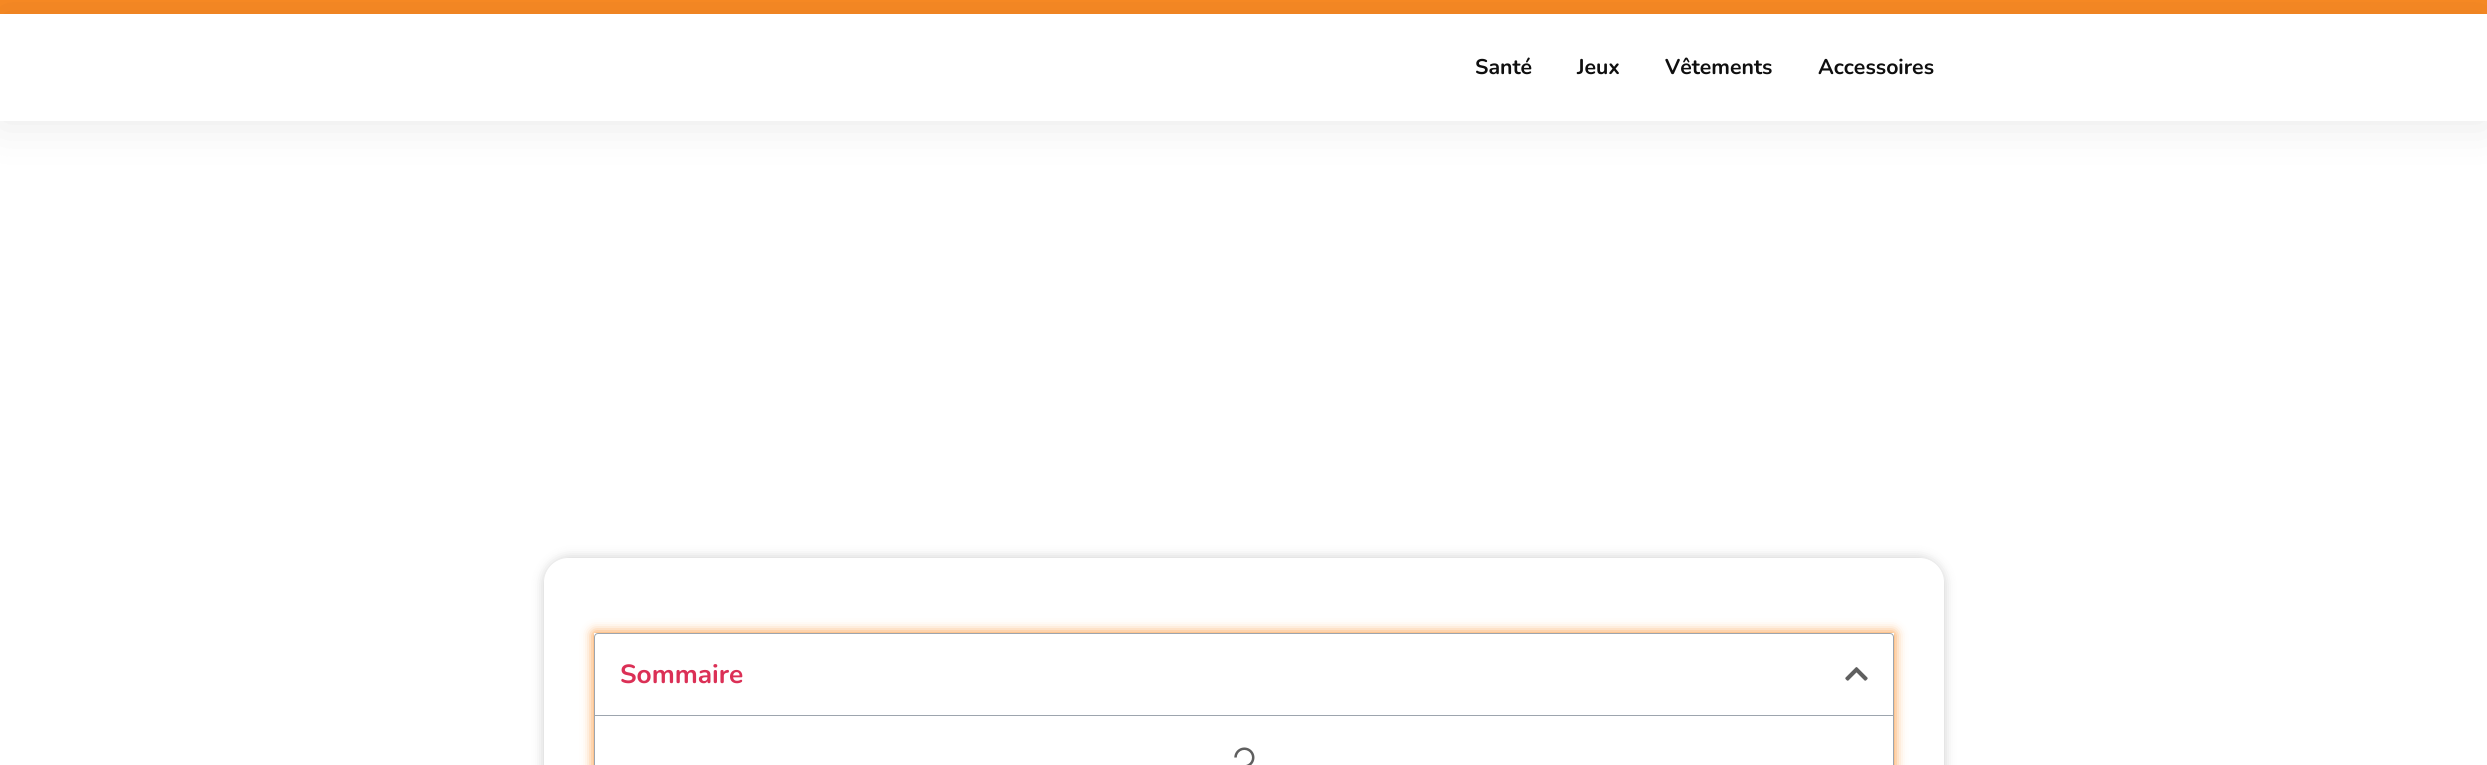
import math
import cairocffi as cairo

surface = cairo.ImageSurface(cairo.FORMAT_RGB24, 2487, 765)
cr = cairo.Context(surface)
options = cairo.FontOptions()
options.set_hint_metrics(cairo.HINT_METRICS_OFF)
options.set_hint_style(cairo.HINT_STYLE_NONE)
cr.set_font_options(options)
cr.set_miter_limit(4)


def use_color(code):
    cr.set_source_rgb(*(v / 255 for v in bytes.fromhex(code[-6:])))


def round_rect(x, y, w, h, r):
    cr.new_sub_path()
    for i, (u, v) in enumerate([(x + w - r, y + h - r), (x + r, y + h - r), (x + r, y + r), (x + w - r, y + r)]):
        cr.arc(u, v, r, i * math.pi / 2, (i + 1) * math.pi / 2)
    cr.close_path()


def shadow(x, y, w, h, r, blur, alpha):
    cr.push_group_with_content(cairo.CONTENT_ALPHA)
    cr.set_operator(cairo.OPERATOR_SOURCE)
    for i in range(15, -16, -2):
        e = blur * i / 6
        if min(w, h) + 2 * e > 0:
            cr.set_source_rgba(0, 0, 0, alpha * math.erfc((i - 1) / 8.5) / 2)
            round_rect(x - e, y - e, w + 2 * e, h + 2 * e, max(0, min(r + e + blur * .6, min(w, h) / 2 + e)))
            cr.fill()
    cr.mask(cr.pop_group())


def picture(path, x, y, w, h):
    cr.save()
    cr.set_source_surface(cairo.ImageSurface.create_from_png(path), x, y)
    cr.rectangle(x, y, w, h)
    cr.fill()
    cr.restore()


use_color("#ffffff")
cr.paint()
use_color("#fb8b24")
cr.rectangle(0, 0, 2487, 14)
cr.fill()
cr.save()
cr.set_fill_rule(cairo.FILL_RULE_EVEN_ODD)
cr.new_path()
cr.move_to(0, 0)
cr.line_to(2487, 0)
cr.line_to(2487, 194)
cr.line_to(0, 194)
cr.close_path()
cr.move_to(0, 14)
cr.line_to(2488, 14)
cr.line_to(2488, 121)
cr.line_to(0, 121)
cr.close_path()
cr.clip()
use_color("#000000")
shadow(0, 14, 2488, 107, 0, 24, 0.1)
cr.restore()
cr.select_font_face("Nunito", cairo.FONT_SLANT_NORMAL, cairo.FONT_WEIGHT_BOLD)
cr.set_font_size(21.25)
use_color("#0f0f0f")
cr.move_to(1475, 74)
cr.show_text("Santé")
cr.move_to(1577, 74)
cr.show_text("Jeux")
cr.move_to(1665, 74)
cr.show_text("Vêtements")
cr.move_to(1818, 74)
cr.show_text("Accessoires")
cr.save()
cr.set_fill_rule(cairo.FILL_RULE_EVEN_ODD)
cr.new_path()
cr.move_to(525, 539)
cr.line_to(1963, 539)
cr.line_to(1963, 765)
cr.line_to(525, 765)
cr.close_path()
cr.move_to(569, 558)
cr.line_to(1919, 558)
cr.curve_to(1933, 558, 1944, 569, 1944, 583)
cr.line_to(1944, 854)
cr.curve_to(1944, 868, 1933, 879, 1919, 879)
cr.line_to(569, 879)
cr.curve_to(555, 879, 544, 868, 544, 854)
cr.line_to(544, 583)
cr.curve_to(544, 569, 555, 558, 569, 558)
cr.close_path()
cr.clip()
use_color("#000000")
shadow(544, 558, 1400, 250, 25, 6, 0.21)
cr.restore()
cr.save()
cr.set_fill_rule(cairo.FILL_RULE_EVEN_ODD)
cr.new_path()
cr.move_to(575, 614)
cr.line_to(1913, 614)
cr.line_to(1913, 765)
cr.line_to(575, 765)
cr.close_path()
cr.move_to(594, 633)
cr.line_to(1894, 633)
cr.line_to(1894, 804)
cr.line_to(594, 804)
cr.close_path()
cr.clip()
use_color("#fb8b24")
shadow(594, 633, 1300, 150, 0, 6, 1)
cr.restore()
round_rect(594.5, 633.5, 1299, 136, 3.5)
use_color("#9da5ae")
cr.set_line_width(1)
cr.stroke()
cr.rectangle(595, 715, 1298, 1)
cr.fill()
cr.set_font_size(26.25)
use_color("#db3056")
cr.move_to(620, 683)
cr.show_text("Sommaire")
picture("img1.png", 1845, 667, 23, 14)
picture("img2.png", 1234, 747, 21, 18)
surface.write_to_png("result.png")
